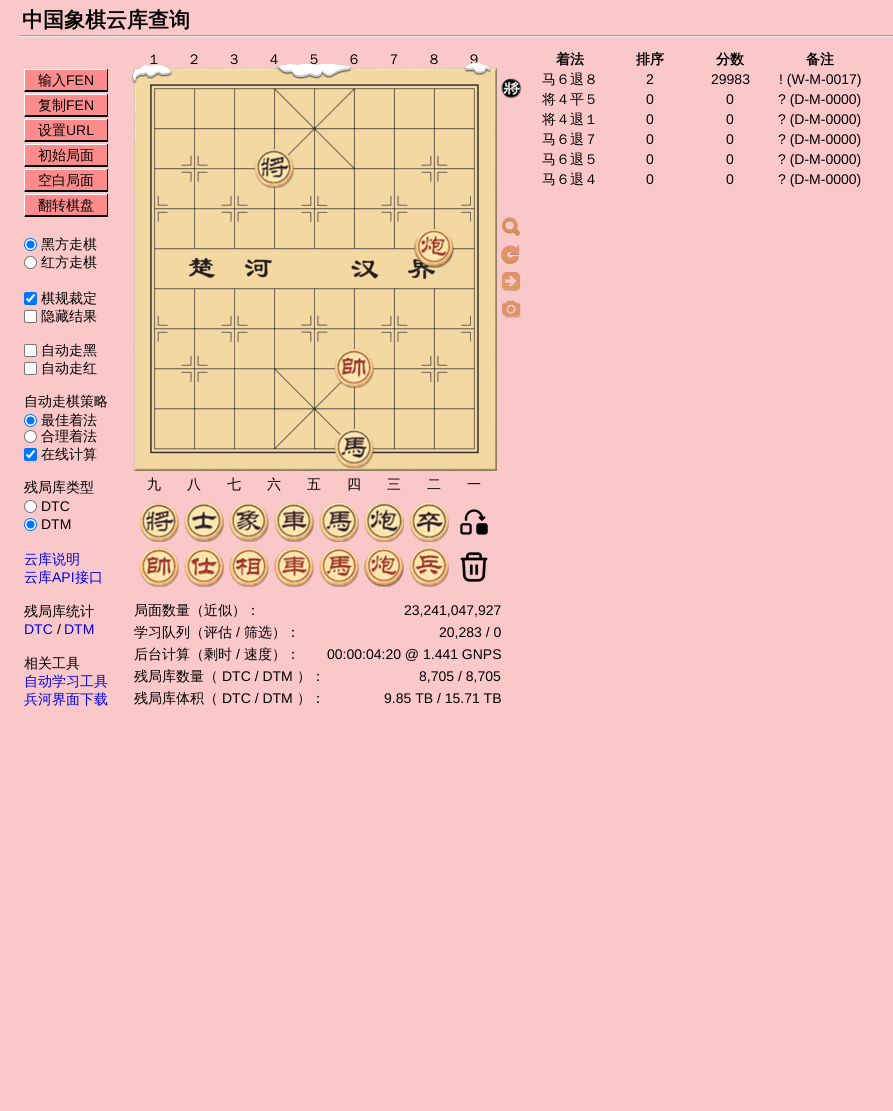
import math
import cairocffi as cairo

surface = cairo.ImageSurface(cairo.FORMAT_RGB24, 893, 1111)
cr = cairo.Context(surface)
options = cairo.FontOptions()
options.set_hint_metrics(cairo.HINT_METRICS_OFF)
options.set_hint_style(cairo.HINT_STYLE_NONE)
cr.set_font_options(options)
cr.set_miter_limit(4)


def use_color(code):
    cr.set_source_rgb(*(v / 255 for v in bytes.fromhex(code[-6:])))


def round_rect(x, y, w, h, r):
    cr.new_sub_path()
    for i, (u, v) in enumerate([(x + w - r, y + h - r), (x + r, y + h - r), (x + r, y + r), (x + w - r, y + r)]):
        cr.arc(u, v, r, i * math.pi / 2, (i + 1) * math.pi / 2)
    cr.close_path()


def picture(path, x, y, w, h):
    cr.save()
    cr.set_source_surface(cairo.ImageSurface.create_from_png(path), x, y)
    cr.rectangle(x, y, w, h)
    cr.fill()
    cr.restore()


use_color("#fac8c8")
cr.paint()
cr.select_font_face("WenQuanYi Zen Hei", cairo.FONT_SLANT_NORMAL, cairo.FONT_WEIGHT_BOLD)
cr.set_font_size(21)
use_color("#000000")
cr.move_to(22, 27)
cr.show_text("中国象棋云库查询")
use_color("#9f9f9f")
cr.rectangle(20, 35, 873, 1)
cr.fill()
use_color("#eeeeee")
cr.rectangle(20, 36, 873, 1)
cr.fill()
use_color("#ff8c8c")
cr.rectangle(25, 70, 82, 20)
cr.fill()
use_color("#ffffff")
cr.rectangle(24, 69, 84, 1)
cr.fill()
use_color("#000000")
cr.rectangle(107, 69, 1, 23)
cr.fill()
cr.new_path()
cr.move_to(108, 92)
cr.line_to(24, 92)
cr.line_to(25, 90)
cr.line_to(107, 90)
cr.close_path()
cr.fill()
use_color("#ffffff")
cr.new_path()
cr.move_to(24, 92)
cr.line_to(24, 69)
cr.line_to(25, 70)
cr.line_to(25, 90)
cr.close_path()
cr.fill()
cr.select_font_face("WenQuanYi Zen Hei Medium")
cr.set_font_size(14)
use_color("#000000")
cr.move_to(38, 85)
cr.show_text("输入")
cr.select_font_face("Liberation Sans")
cr.move_to(66, 85)
cr.show_text("FEN")
use_color("#ff8c8c")
cr.rectangle(25, 95, 82, 20)
cr.fill()
use_color("#ffffff")
cr.rectangle(24, 94, 84, 1)
cr.fill()
use_color("#000000")
cr.rectangle(107, 94, 1, 23)
cr.fill()
cr.new_path()
cr.move_to(108, 117)
cr.line_to(24, 117)
cr.line_to(25, 115)
cr.line_to(107, 115)
cr.close_path()
cr.fill()
use_color("#ffffff")
cr.new_path()
cr.move_to(24, 117)
cr.line_to(24, 94)
cr.line_to(25, 95)
cr.line_to(25, 115)
cr.close_path()
cr.fill()
cr.select_font_face("WenQuanYi Zen Hei Medium")
use_color("#000000")
cr.move_to(38, 110)
cr.show_text("复制")
cr.select_font_face("Liberation Sans")
cr.move_to(66, 110)
cr.show_text("FEN")
use_color("#ff8c8c")
cr.rectangle(25, 120, 82, 20)
cr.fill()
use_color("#ffffff")
cr.rectangle(24, 119, 84, 1)
cr.fill()
use_color("#000000")
cr.rectangle(107, 119, 1, 23)
cr.fill()
cr.new_path()
cr.move_to(108, 142)
cr.line_to(24, 142)
cr.line_to(25, 140)
cr.line_to(107, 140)
cr.close_path()
cr.fill()
use_color("#ffffff")
cr.new_path()
cr.move_to(24, 142)
cr.line_to(24, 119)
cr.line_to(25, 120)
cr.line_to(25, 140)
cr.close_path()
cr.fill()
cr.select_font_face("WenQuanYi Zen Hei Medium")
use_color("#000000")
cr.move_to(38, 135)
cr.show_text("设置")
cr.select_font_face("Liberation Sans")
cr.move_to(66, 135)
cr.show_text("URL")
use_color("#ff8c8c")
cr.rectangle(25, 145, 82, 20)
cr.fill()
use_color("#ffffff")
cr.rectangle(24, 144, 84, 1)
cr.fill()
use_color("#000000")
cr.rectangle(107, 144, 1, 23)
cr.fill()
cr.new_path()
cr.move_to(108, 167)
cr.line_to(24, 167)
cr.line_to(25, 165)
cr.line_to(107, 165)
cr.close_path()
cr.fill()
use_color("#ffffff")
cr.new_path()
cr.move_to(24, 167)
cr.line_to(24, 144)
cr.line_to(25, 145)
cr.line_to(25, 165)
cr.close_path()
cr.fill()
cr.select_font_face("WenQuanYi Zen Hei Medium")
use_color("#000000")
cr.move_to(38, 160)
cr.show_text("初始局面")
use_color("#ff8c8c")
cr.rectangle(25, 170, 82, 20)
cr.fill()
use_color("#ffffff")
cr.rectangle(24, 169, 84, 1)
cr.fill()
use_color("#000000")
cr.rectangle(107, 169, 1, 23)
cr.fill()
cr.new_path()
cr.move_to(108, 192)
cr.line_to(24, 192)
cr.line_to(25, 190)
cr.line_to(107, 190)
cr.close_path()
cr.fill()
use_color("#ffffff")
cr.new_path()
cr.move_to(24, 192)
cr.line_to(24, 169)
cr.line_to(25, 170)
cr.line_to(25, 190)
cr.close_path()
cr.fill()
use_color("#000000")
cr.move_to(38, 185)
cr.show_text("空白局面")
use_color("#ff8c8c")
cr.rectangle(25, 195, 82, 20)
cr.fill()
use_color("#ffffff")
cr.rectangle(24, 194, 84, 1)
cr.fill()
use_color("#000000")
cr.rectangle(107, 194, 1, 23)
cr.fill()
cr.new_path()
cr.move_to(108, 217)
cr.line_to(24, 217)
cr.line_to(25, 215)
cr.line_to(107, 215)
cr.close_path()
cr.fill()
use_color("#ffffff")
cr.new_path()
cr.move_to(24, 217)
cr.line_to(24, 194)
cr.line_to(25, 195)
cr.line_to(25, 215)
cr.close_path()
cr.fill()
use_color("#000000")
cr.move_to(38, 210)
cr.show_text("翻转棋盘")
use_color("#ffffff")
cr.new_path()
cr.arc(30.5, 244.5, 6, 0, 2 * math.pi)
cr.fill_preserve()
use_color("#0075ff")
cr.set_line_width(1)
cr.stroke()
cr.arc(30.5, 244.5, 4, 0, 2 * math.pi)
cr.fill()
use_color("#000000")
cr.move_to(41, 249)
cr.show_text("黑方走棋")
use_color("#ffffff")
cr.new_path()
cr.arc(30.5, 262.5, 6, 0, 2 * math.pi)
cr.fill_preserve()
use_color("#767676")
cr.stroke()
use_color("#000000")
cr.move_to(41, 267)
cr.show_text("红方走棋")
use_color("#0075ff")
round_rect(24, 292, 13, 13, 2)
cr.fill()
cr.new_path()
cr.move_to(26.5, 298.5)
cr.line_to(29, 301)
cr.line_to(34.5, 294.5)
use_color("#ffffff")
cr.set_line_width(2.1)
cr.stroke()
use_color("#000000")
cr.move_to(41, 303)
cr.show_text("棋规裁定")
use_color("#ffffff")
round_rect(24.5, 310.5, 12, 12, 1.5)
cr.fill_preserve()
use_color("#767676")
cr.set_line_width(1)
cr.stroke()
use_color("#000000")
cr.move_to(41, 321)
cr.show_text("隐藏结果")
use_color("#ffffff")
round_rect(24.5, 344.5, 12, 12, 1.5)
cr.fill_preserve()
use_color("#767676")
cr.stroke()
use_color("#000000")
cr.move_to(41, 355)
cr.show_text("自动走黑")
use_color("#ffffff")
round_rect(24.5, 362.5, 12, 12, 1.5)
cr.fill_preserve()
use_color("#767676")
cr.stroke()
use_color("#000000")
cr.move_to(41, 373)
cr.show_text("自动走红")
cr.move_to(24, 406)
cr.show_text("自动走棋策略")
use_color("#ffffff")
cr.new_path()
cr.arc(30.5, 420.5, 6, 0, 2 * math.pi)
cr.fill_preserve()
use_color("#0075ff")
cr.stroke()
cr.arc(30.5, 420.5, 4, 0, 2 * math.pi)
cr.fill()
use_color("#000000")
cr.move_to(41, 425)
cr.show_text("最佳着法")
use_color("#ffffff")
cr.new_path()
cr.arc(30.5, 436.5, 6, 0, 2 * math.pi)
cr.fill_preserve()
use_color("#767676")
cr.stroke()
use_color("#000000")
cr.move_to(41, 441)
cr.show_text("合理着法")
use_color("#0075ff")
round_rect(24, 448, 13, 13, 2)
cr.fill()
cr.new_path()
cr.move_to(26.5, 454.5)
cr.line_to(29, 457)
cr.line_to(34.5, 450.5)
use_color("#ffffff")
cr.set_line_width(2.1)
cr.stroke()
use_color("#000000")
cr.move_to(41, 459)
cr.show_text("在线计算")
cr.move_to(24, 492)
cr.show_text("残局库类型")
use_color("#ffffff")
cr.new_path()
cr.arc(30.5, 506.5, 6, 0, 2 * math.pi)
cr.fill_preserve()
use_color("#767676")
cr.set_line_width(1)
cr.stroke()
cr.select_font_face("Liberation Sans")
use_color("#000000")
cr.move_to(41, 511)
cr.show_text("DTC")
use_color("#ffffff")
cr.new_path()
cr.arc(30.5, 524.5, 6, 0, 2 * math.pi)
cr.fill_preserve()
use_color("#0075ff")
cr.stroke()
cr.arc(30.5, 524.5, 4, 0, 2 * math.pi)
cr.fill()
use_color("#000000")
cr.move_to(41, 529)
cr.show_text("DTM")
cr.select_font_face("WenQuanYi Zen Hei Medium")
use_color("#0000ee")
cr.move_to(24, 564)
cr.show_text("云库说明")
cr.move_to(24, 582)
cr.show_text("云库")
cr.select_font_face("Liberation Sans")
cr.move_to(52, 582)
cr.show_text("API")
cr.select_font_face("WenQuanYi Zen Hei Medium")
cr.move_to(75, 582)
cr.show_text("接口")
use_color("#000000")
cr.move_to(24, 616)
cr.show_text("残局库统计")
cr.select_font_face("Liberation Sans")
use_color("#0000ee")
cr.move_to(24, 634)
cr.show_text("DTC")
use_color("#000000")
cr.move_to(57, 634)
cr.show_text("/")
use_color("#0000ee")
cr.move_to(64, 634)
cr.show_text("DTM")
cr.select_font_face("WenQuanYi Zen Hei Medium")
use_color("#000000")
cr.move_to(24, 668)
cr.show_text("相关工具")
use_color("#0000ee")
cr.move_to(24, 686)
cr.show_text("自动学习工具")
cr.move_to(24, 704)
cr.show_text("兵河界面下载")
use_color("#000000")
cr.move_to(147, 64)
cr.show_text("１")
cr.move_to(187, 64)
cr.show_text("２")
cr.move_to(227, 64)
cr.show_text("３")
cr.move_to(267, 64)
cr.show_text("４")
cr.move_to(307, 64)
cr.show_text("５")
cr.move_to(347, 64)
cr.show_text("６")
cr.move_to(387, 64)
cr.show_text("７")
cr.move_to(427, 64)
cr.show_text("８")
cr.move_to(467, 64)
cr.show_text("９")
picture("img2.png", 134, 68, 363, 403)
picture("img1.png", 131, 62, 360, 22)
picture("img3.png", 254, 148, 40, 40)
picture("img4.png", 414, 228, 40, 40)
picture("img5.png", 334, 348, 40, 40)
picture("img6.png", 334, 428, 40, 40)
picture("img7.png", 501, 78, 21, 21)
picture("img8.png", 501, 217, 19, 19)
picture("img9.png", 501, 245, 19, 19)
picture("img10.png", 501, 272, 20, 19)
picture("img11.png", 502, 300, 19, 18)
cr.move_to(147, 489)
cr.show_text("九")
cr.move_to(187, 489)
cr.show_text("八")
cr.move_to(227, 489)
cr.show_text("七")
cr.move_to(267, 489)
cr.show_text("六")
cr.move_to(307, 489)
cr.show_text("五")
cr.move_to(347, 489)
cr.show_text("四")
cr.move_to(387, 489)
cr.show_text("三")
cr.move_to(427, 489)
cr.show_text("二")
cr.move_to(467, 489)
cr.show_text("一")
picture("img12.png", 139, 502, 40, 40)
picture("img13.png", 184, 502, 40, 40)
picture("img14.png", 229, 502, 40, 40)
picture("img15.png", 274, 502, 40, 40)
picture("img16.png", 319, 502, 40, 40)
picture("img17.png", 364, 502, 40, 40)
picture("img18.png", 409, 502, 40, 40)
picture("img19.png", 460, 509, 28, 26)
picture("img20.png", 139, 547, 40, 40)
picture("img21.png", 184, 547, 40, 40)
picture("img22.png", 229, 547, 40, 40)
picture("img23.png", 274, 547, 40, 40)
picture("img24.png", 319, 547, 40, 40)
picture("img25.png", 364, 547, 40, 40)
picture("img26.png", 409, 547, 40, 40)
picture("img27.png", 460, 552, 28, 30)
cr.move_to(134, 615)
cr.show_text("局面数量（近似）：")
cr.select_font_face("Liberation Sans")
cr.move_to(404, 615)
cr.show_text("23,241,047,927")
cr.select_font_face("WenQuanYi Zen Hei Medium")
cr.move_to(134, 637)
cr.show_text("学习队列（评估")
cr.select_font_face("Liberation Sans")
cr.move_to(236, 637)
cr.show_text("/")
cr.select_font_face("WenQuanYi Zen Hei Medium")
cr.move_to(244, 637)
cr.show_text("筛选）：")
cr.select_font_face("Liberation Sans")
cr.move_to(439, 637)
cr.show_text("20,283 / 0")
cr.select_font_face("WenQuanYi Zen Hei Medium")
cr.move_to(134, 659)
cr.show_text("后台计算（剩时")
cr.select_font_face("Liberation Sans")
cr.move_to(236, 659)
cr.show_text("/")
cr.select_font_face("WenQuanYi Zen Hei Medium")
cr.move_to(244, 659)
cr.show_text("速度）：")
cr.select_font_face("Liberation Sans")
cr.move_to(327, 659)
cr.show_text("00:00:04:20 @ 1.441 GNPS")
cr.select_font_face("WenQuanYi Zen Hei Medium")
cr.move_to(134, 681)
cr.show_text("残局库数量（")
cr.select_font_face("Liberation Sans")
cr.move_to(222, 681)
cr.show_text("DTC / DTM")
cr.select_font_face("WenQuanYi Zen Hei Medium")
cr.move_to(297, 681)
cr.show_text("）：")
cr.select_font_face("Liberation Sans")
cr.move_to(419, 681)
cr.show_text("8,705 / 8,705")
cr.select_font_face("WenQuanYi Zen Hei Medium")
cr.move_to(134, 703)
cr.show_text("残局库体积（")
cr.select_font_face("Liberation Sans")
cr.move_to(222, 703)
cr.show_text("DTC / DTM")
cr.select_font_face("WenQuanYi Zen Hei Medium")
cr.move_to(297, 703)
cr.show_text("）：")
cr.select_font_face("Liberation Sans")
cr.move_to(384, 703)
cr.show_text("9.85 TB / 15.71 TB")
cr.select_font_face("WenQuanYi Zen Hei", cairo.FONT_SLANT_NORMAL, cairo.FONT_WEIGHT_BOLD)
cr.move_to(556, 64)
cr.show_text("着法")
cr.move_to(636, 64)
cr.show_text("排序")
cr.move_to(716, 64)
cr.show_text("分数")
cr.move_to(806, 64)
cr.show_text("备注")
cr.select_font_face("WenQuanYi Zen Hei Medium")
cr.move_to(542, 84)
cr.show_text("马６退８")
cr.select_font_face("Liberation Sans")
cr.move_to(646, 84)
cr.show_text("2")
cr.move_to(711, 84)
cr.show_text("29983")
cr.move_to(779, 84)
cr.show_text("! (W-M-0017)")
cr.select_font_face("WenQuanYi Zen Hei Medium")
cr.move_to(542, 104)
cr.show_text("将４平５")
cr.select_font_face("Liberation Sans")
cr.move_to(646, 104)
cr.show_text("0")
cr.move_to(726, 104)
cr.show_text("0")
cr.move_to(778, 104)
cr.show_text("? (D-M-0000)")
cr.select_font_face("WenQuanYi Zen Hei Medium")
cr.move_to(542, 124)
cr.show_text("将４退１")
cr.select_font_face("Liberation Sans")
cr.move_to(646, 124)
cr.show_text("0")
cr.move_to(726, 124)
cr.show_text("0")
cr.move_to(778, 124)
cr.show_text("? (D-M-0000)")
cr.select_font_face("WenQuanYi Zen Hei Medium")
cr.move_to(542, 144)
cr.show_text("马６退７")
cr.select_font_face("Liberation Sans")
cr.move_to(646, 144)
cr.show_text("0")
cr.move_to(726, 144)
cr.show_text("0")
cr.move_to(778, 144)
cr.show_text("? (D-M-0000)")
cr.select_font_face("WenQuanYi Zen Hei Medium")
cr.move_to(542, 164)
cr.show_text("马６退５")
cr.select_font_face("Liberation Sans")
cr.move_to(646, 164)
cr.show_text("0")
cr.move_to(726, 164)
cr.show_text("0")
cr.move_to(778, 164)
cr.show_text("? (D-M-0000)")
cr.select_font_face("WenQuanYi Zen Hei Medium")
cr.move_to(542, 184)
cr.show_text("马６退４")
cr.select_font_face("Liberation Sans")
cr.move_to(646, 184)
cr.show_text("0")
cr.move_to(726, 184)
cr.show_text("0")
cr.move_to(778, 184)
cr.show_text("? (D-M-0000)")
surface.write_to_png("result.png")
